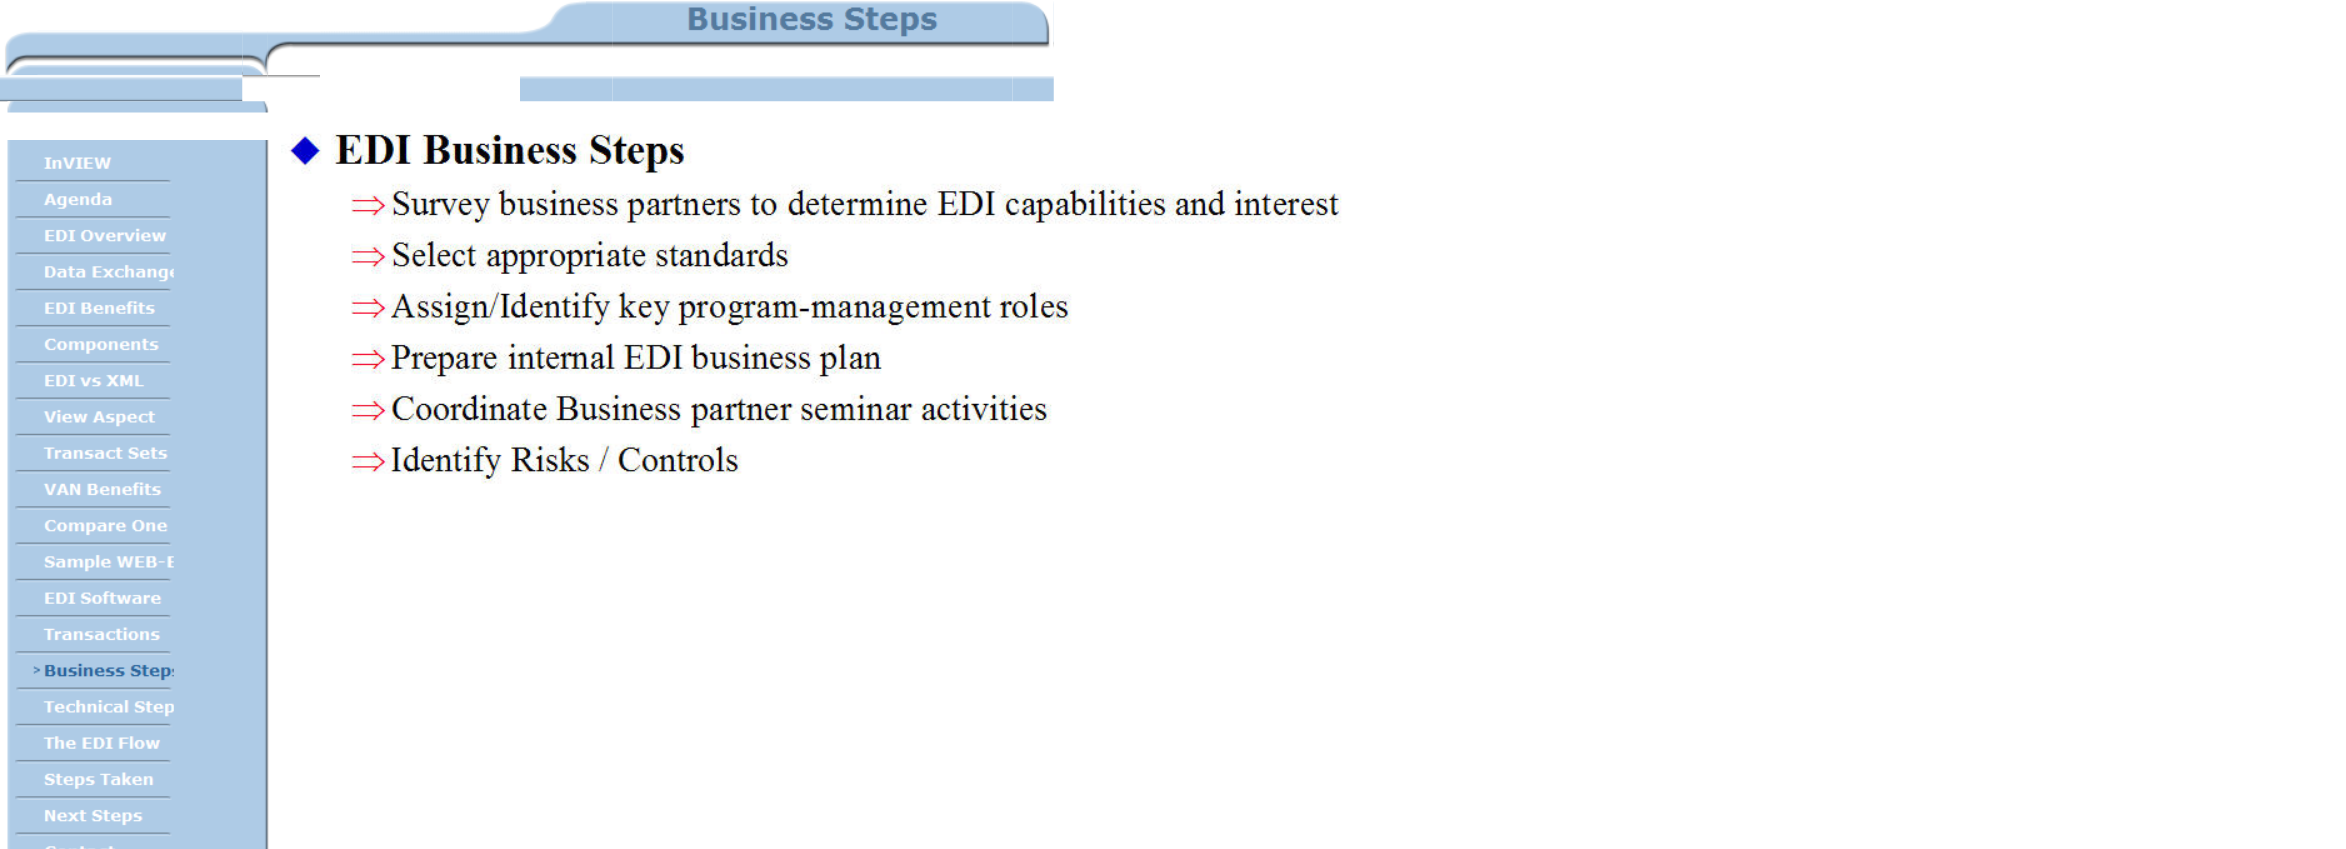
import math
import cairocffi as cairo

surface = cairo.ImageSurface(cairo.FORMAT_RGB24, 2346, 849)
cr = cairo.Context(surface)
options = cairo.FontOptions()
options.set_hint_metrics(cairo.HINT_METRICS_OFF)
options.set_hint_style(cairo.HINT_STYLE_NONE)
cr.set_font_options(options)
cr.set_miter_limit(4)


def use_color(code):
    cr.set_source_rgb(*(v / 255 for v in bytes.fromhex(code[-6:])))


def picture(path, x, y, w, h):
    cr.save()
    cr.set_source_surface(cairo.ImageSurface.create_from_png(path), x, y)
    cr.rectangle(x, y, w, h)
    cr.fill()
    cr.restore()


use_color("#ffffff")
cr.paint()
picture("img1.png", 0, 30, 243, 72)
picture("img2.png", 0, 30, 38, 45)
picture("img3.png", 242, 31, 26, 70)
picture("img5.png", 267, 31, 53, 47)
picture("img4.png", 242, 31, 26, 44)
picture("img6.png", 267, 31, 53, 44)
picture("img7.png", 320, 31, 200, 18)
picture("img8.png", 520, 1, 93, 101)
picture("img9.png", 520, 1, 66, 34)
picture("img10.png", 612, 1, 401, 101)
picture("img12.png", 1012, 1, 42, 101)
picture("img11.png", 612, 2, 401, 45)
picture("img13.png", 1012, 1, 42, 48)
picture("img14.png", 7, 101, 262, 12)
picture("img15.png", 7, 140, 262, 709)
picture("img16.png", 15, 157, 157, 27)
picture("img17.png", 15, 183, 157, 37)
picture("img18.png", 15, 228, 157, 29)
picture("img19.png", 15, 256, 159, 37)
picture("img20.png", 15, 292, 157, 37)
picture("img21.png", 15, 328, 157, 37)
picture("img22.png", 15, 374, 157, 28)
picture("img23.png", 15, 401, 157, 37)
picture("img24.png", 15, 437, 157, 37)
picture("img25.png", 15, 473, 157, 37)
picture("img26.png", 15, 519, 157, 28)
picture("img27.png", 15, 546, 159, 37)
picture("img28.png", 15, 582, 157, 37)
picture("img29.png", 15, 618, 157, 37)
picture("img30.png", 16, 663, 158, 29)
picture("img31.png", 15, 700, 159, 28)
picture("img32.png", 15, 727, 157, 37)
picture("img33.png", 15, 763, 157, 37)
picture("img34.png", 15, 809, 157, 28)
picture("img35.png", 21, 836, 148, 13)
picture("img36.png", 281, 133, 1061, 351)
surface.write_to_png("result.png")
